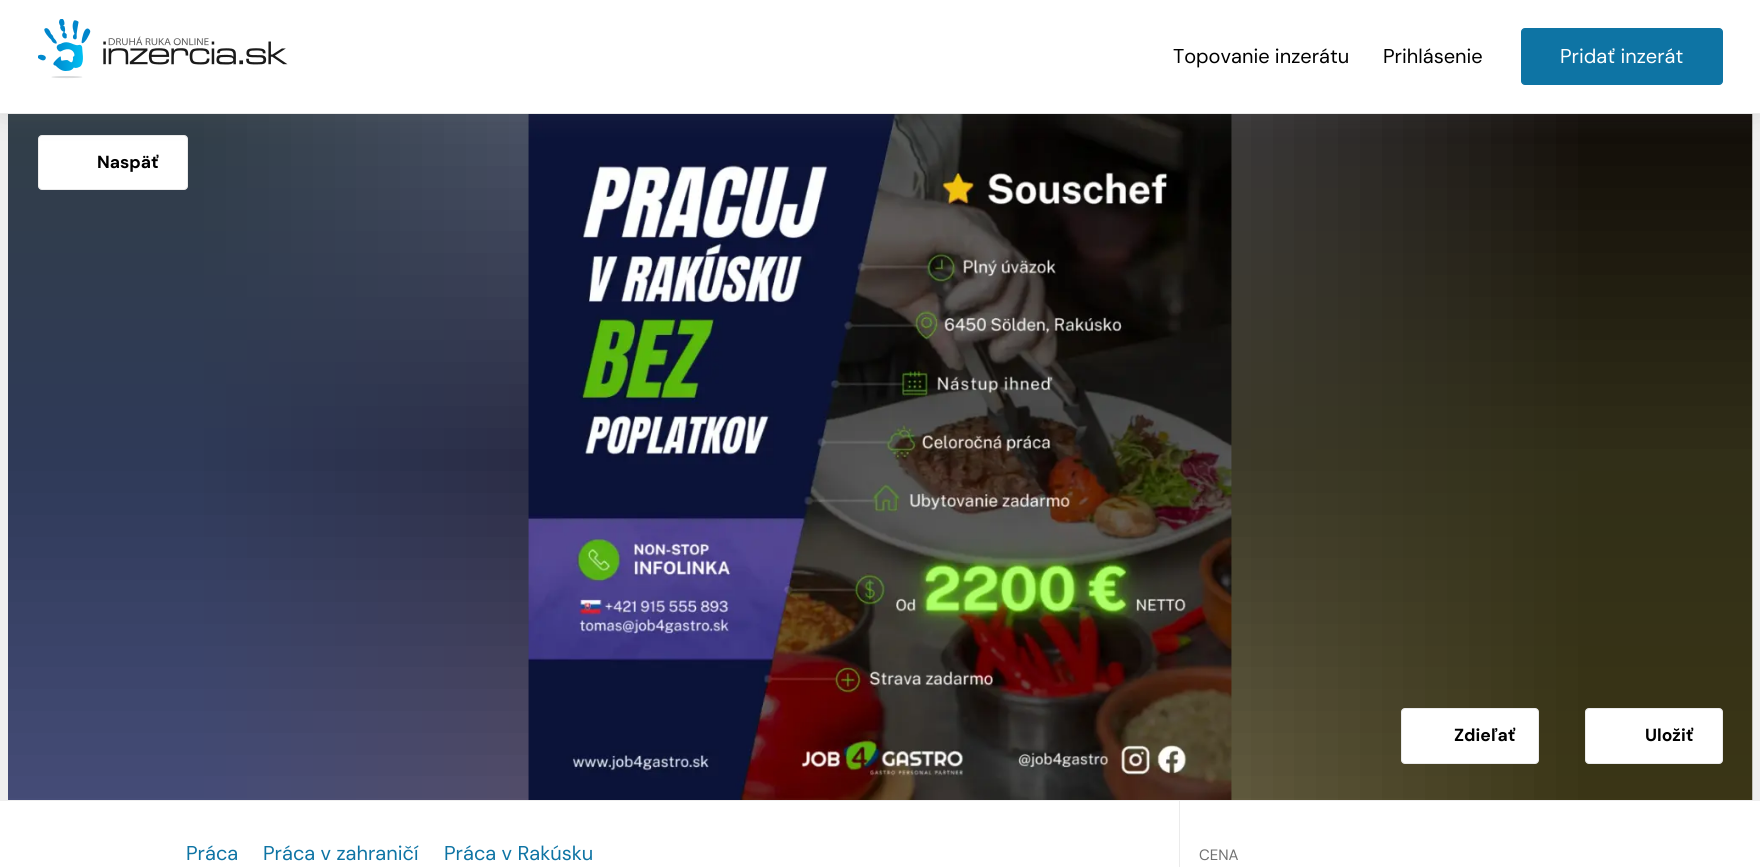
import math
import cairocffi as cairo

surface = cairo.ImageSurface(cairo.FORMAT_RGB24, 1760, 867)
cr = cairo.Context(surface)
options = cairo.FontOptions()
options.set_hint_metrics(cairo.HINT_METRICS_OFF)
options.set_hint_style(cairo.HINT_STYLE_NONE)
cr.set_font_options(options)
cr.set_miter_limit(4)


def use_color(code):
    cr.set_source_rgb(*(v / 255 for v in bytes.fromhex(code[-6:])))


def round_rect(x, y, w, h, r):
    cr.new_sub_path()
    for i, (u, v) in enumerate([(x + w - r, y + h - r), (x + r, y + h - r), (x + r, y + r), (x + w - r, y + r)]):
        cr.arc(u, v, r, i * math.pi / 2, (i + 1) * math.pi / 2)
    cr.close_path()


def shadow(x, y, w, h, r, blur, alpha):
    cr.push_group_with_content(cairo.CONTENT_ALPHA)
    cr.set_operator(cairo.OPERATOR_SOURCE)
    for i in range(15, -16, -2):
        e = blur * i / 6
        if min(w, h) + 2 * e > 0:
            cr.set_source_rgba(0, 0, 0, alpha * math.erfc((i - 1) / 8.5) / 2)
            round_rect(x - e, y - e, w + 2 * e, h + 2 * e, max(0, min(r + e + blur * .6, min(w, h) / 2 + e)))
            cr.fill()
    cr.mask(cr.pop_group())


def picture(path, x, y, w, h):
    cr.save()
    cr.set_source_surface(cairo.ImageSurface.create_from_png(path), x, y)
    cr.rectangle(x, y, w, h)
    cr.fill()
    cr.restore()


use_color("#ffffff")
cr.paint()
use_color("#efefef")
cr.rectangle(0, 114, 1760, 687)
cr.fill()
picture("img2.png", 8, 114, 1745, 686)
picture("img3.png", 528, 114, 704, 686)
picture("img4.png", 528, 114, 704, 686)
use_color("#ffffff")
round_rect(38.5, 135.5, 149, 54, 3.5)
cr.fill_preserve()
use_color("#ebebeb")
cr.set_line_width(1)
cr.stroke()
use_color("#717171")
shadow(0, 0, 1760, 114, 0, 12.5, 0.2)
use_color("#ffffff")
cr.rectangle(0, 0, 1760, 113)
cr.fill()
use_color("#ebebeb")
cr.rectangle(0, 113, 1760, 1)
cr.fill()
picture("img1.png", 38, 19, 250, 60)
cr.select_font_face("DM Sans")
cr.set_font_size(20)
use_color("#000000")
cr.move_to(1173, 63)
cr.show_text("Topovanie inzerátu")
cr.move_to(1383, 63)
cr.show_text("Prihlásenie")
use_color("#0e74a4")
round_rect(1521.5, 28.5, 201, 56, 3.5)
cr.fill_preserve()
cr.stroke()
use_color("#ffffff")
cr.move_to(1560, 63)
cr.show_text("Pridať inzerát")
cr.select_font_face("DM Sans", cairo.FONT_SLANT_NORMAL, cairo.FONT_WEIGHT_BOLD)
cr.set_font_size(17.5)
use_color("#000000")
cr.move_to(97, 168)
cr.show_text("Naspäť")
use_color("#ffffff")
round_rect(1401.5, 708.5, 137, 55, 3.5)
cr.fill_preserve()
use_color("#ebebeb")
cr.stroke()
use_color("#000000")
cr.move_to(1454, 741)
cr.show_text("Zdieľať")
use_color("#ffffff")
round_rect(1585.5, 708.5, 137, 55, 3.5)
cr.fill_preserve()
use_color("#ebebeb")
cr.stroke()
use_color("#000000")
cr.move_to(1645, 741)
cr.show_text("Uložiť")
use_color("#ebebeb")
cr.rectangle(1179, 801, 1, 66)
cr.fill()
cr.select_font_face("DM Sans")
cr.set_font_size(20)
use_color("#0e74a4")
cr.move_to(186, 860)
cr.show_text("Práca")
cr.move_to(263, 860)
cr.show_text("Práca v zahraničí")
cr.move_to(444, 860)
cr.show_text("Práca v Rakúsku")
cr.set_font_size(15)
use_color("#717171")
cr.move_to(1199, 860)
cr.show_text("CENA")
surface.write_to_png("result.png")
